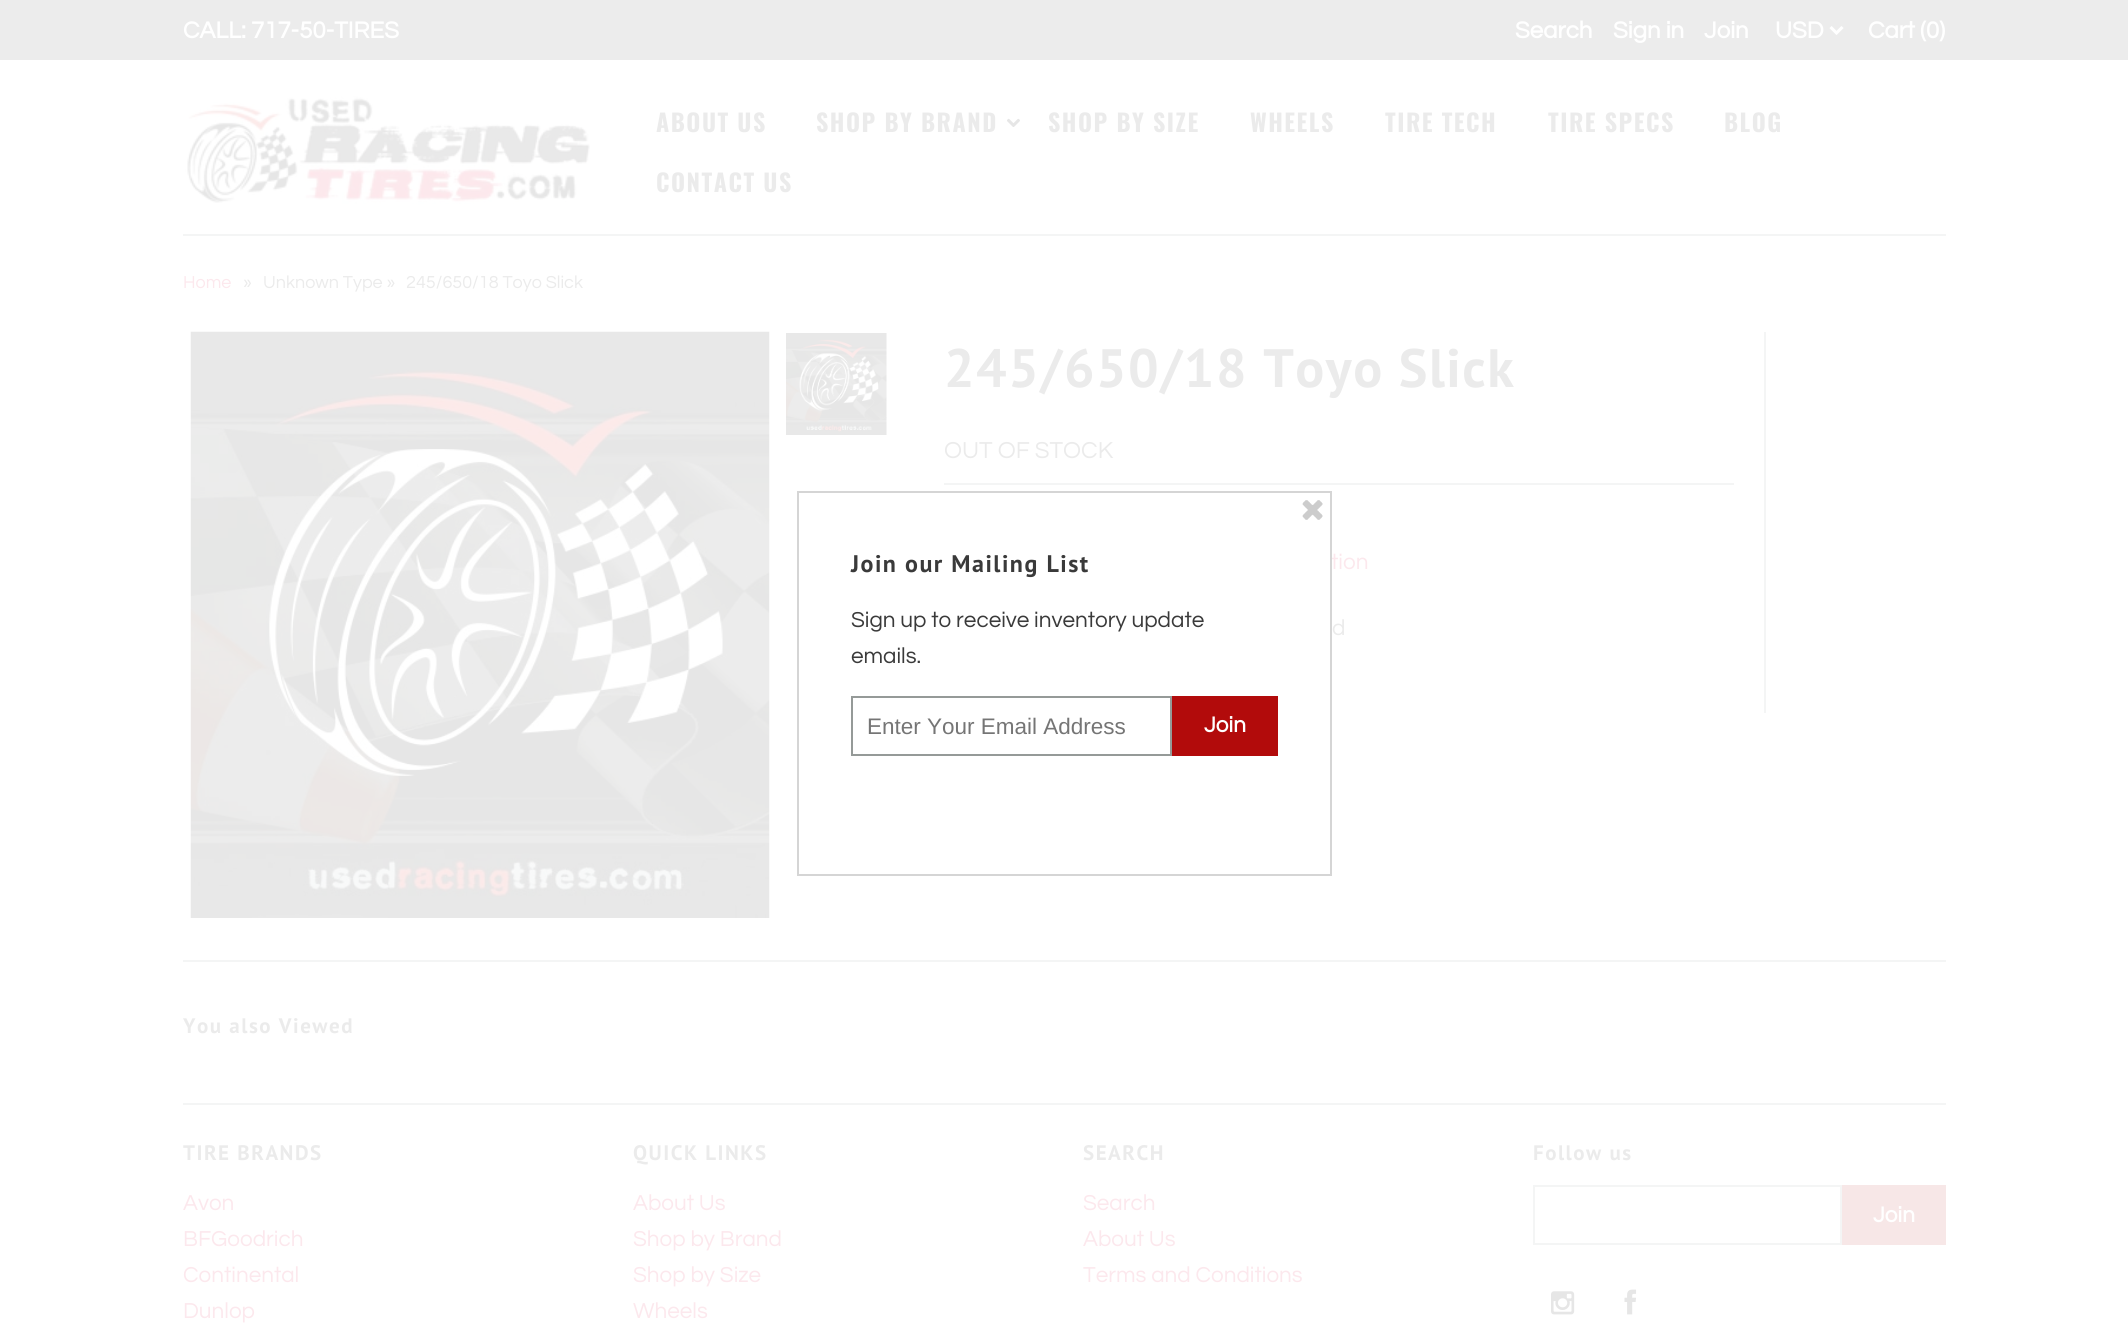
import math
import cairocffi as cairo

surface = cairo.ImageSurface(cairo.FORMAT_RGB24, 2128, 1332)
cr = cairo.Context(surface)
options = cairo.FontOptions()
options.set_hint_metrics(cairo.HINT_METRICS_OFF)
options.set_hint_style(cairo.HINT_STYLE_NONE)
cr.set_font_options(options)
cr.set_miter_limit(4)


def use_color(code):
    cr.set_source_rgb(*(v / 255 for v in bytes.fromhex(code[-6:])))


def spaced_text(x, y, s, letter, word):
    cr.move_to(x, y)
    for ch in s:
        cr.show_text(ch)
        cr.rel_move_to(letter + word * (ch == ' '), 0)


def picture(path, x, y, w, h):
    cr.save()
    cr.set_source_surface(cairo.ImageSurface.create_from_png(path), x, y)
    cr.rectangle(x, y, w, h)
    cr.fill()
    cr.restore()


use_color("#ffffff")
cr.paint()
use_color("#ececec")
cr.rectangle(0, 0, 2128, 60)
cr.fill()
cr.select_font_face("Questrial", cairo.FONT_SLANT_NORMAL, cairo.FONT_WEIGHT_BOLD)
cr.set_font_size(24)
use_color("#ffffff")
cr.move_to(183, 38)
cr.show_text("CALL: 717-50-TIRES")
cr.move_to(1515, 38)
cr.show_text("Search")
cr.move_to(1613, 38)
cr.show_text("Sign in")
cr.move_to(1704, 38)
cr.show_text("Join")
cr.new_path()
cr.move_to(1830.5, 27)
cr.line_to(1836.5, 33)
cr.line_to(1842.5, 27)
cr.set_line_width(3)
cr.stroke()
cr.move_to(1775, 38)
cr.show_text("USD")
cr.move_to(1868, 38)
cr.show_text("Cart (0)")
picture("img1.png", 185, 92, 406, 113)
cr.select_font_face("Oswald", cairo.FONT_SLANT_NORMAL, cairo.FONT_WEIGHT_BOLD)
use_color("#ebebeb")
spaced_text(656, 132, "ABOUT US", 1.5, 0)
spaced_text(816, 132, "SHOP BY BRAND", 1.5, 0)
picture("img2.png", 1007, 118, 13, 9)
spaced_text(1048, 132, "SHOP BY SIZE", 1.5, 0)
spaced_text(1250, 132, "WHEELS", 1.5, 0)
spaced_text(1385, 132, "TIRE TECH", 1.5, 0)
spaced_text(1548, 132, "TIRE SPECS", 1.5, 0)
spaced_text(1724, 132, "BLOG", 1.5, 0)
spaced_text(656, 192, "CONTACT US", 1.5, 0)
use_color("#f4f5f5")
cr.rectangle(183, 234, 1763, 2)
cr.fill()
cr.select_font_face("Questrial")
cr.set_font_size(18)
use_color("#fce8ed")
cr.move_to(183, 288)
cr.show_text("Home")
use_color("#ebebeb")
cr.move_to(243, 288)
cr.show_text("»")
cr.move_to(263, 288)
cr.show_text("Unknown Type »")
cr.move_to(406, 288)
cr.show_text("245/650/18 Toyo Slick")
picture("img3.png", 190, 331, 580, 587)
picture("img4.png", 786, 333, 101, 102)
use_color("#f4f5f5")
cr.rectangle(1764, 332, 2, 381)
cr.fill()
cr.select_font_face("PT Sans", cairo.FONT_SLANT_NORMAL, cairo.FONT_WEIGHT_BOLD)
cr.set_font_size(54)
use_color("#ebebeb")
spaced_text(944, 387, "245/650/18 Toyo Slick", 1.5, 0)
cr.select_font_face("Questrial")
cr.set_font_size(24)
cr.move_to(944, 458)
cr.show_text("OUT OF STOCK")
use_color("#f4f5f5")
cr.rectangle(944, 483, 790, 2)
cr.fill()
cr.set_font_size(22.5)
use_color("#fce8ed")
cr.move_to(1331, 569)
cr.show_text("tion")
use_color("#ebebeb")
cr.move_to(1332, 635)
cr.show_text("d")
use_color("#f4f5f5")
cr.rectangle(183, 960, 1763, 2)
cr.fill()
cr.select_font_face("PT Sans", cairo.FONT_SLANT_NORMAL, cairo.FONT_WEIGHT_BOLD)
cr.set_font_size(21)
use_color("#ebebeb")
spaced_text(183, 1033, "You also Viewed", 1.5, 0)
use_color("#f4f5f5")
cr.rectangle(183, 1103, 1763, 2)
cr.fill()
use_color("#ebebeb")
spaced_text(183, 1160, "TIRE BRANDS", 1.5, 0)
cr.select_font_face("Questrial")
cr.set_font_size(22.5)
use_color("#fce8ed")
cr.move_to(183, 1210)
cr.show_text("Avon")
cr.move_to(183, 1246)
cr.show_text("BFGoodrich")
cr.move_to(183, 1282)
cr.show_text("Continental")
cr.move_to(183, 1318)
cr.show_text("Dunlop")
cr.select_font_face("PT Sans", cairo.FONT_SLANT_NORMAL, cairo.FONT_WEIGHT_BOLD)
cr.set_font_size(21)
use_color("#ebebeb")
spaced_text(633, 1160, "QUICK LINKS", 1.5, 0)
cr.select_font_face("Questrial")
cr.set_font_size(22.5)
use_color("#fce8ed")
cr.move_to(633, 1210)
cr.show_text("About Us")
cr.move_to(633, 1246)
cr.show_text("Shop by Brand")
cr.move_to(633, 1282)
cr.show_text("Shop by Size")
cr.move_to(633, 1318)
cr.show_text("Wheels")
cr.select_font_face("PT Sans", cairo.FONT_SLANT_NORMAL, cairo.FONT_WEIGHT_BOLD)
cr.set_font_size(21)
use_color("#ebebeb")
spaced_text(1083, 1160, "SEARCH", 1.5, 0)
cr.select_font_face("Questrial")
cr.set_font_size(22.5)
use_color("#fce8ed")
cr.move_to(1083, 1210)
cr.show_text("Search")
cr.move_to(1083, 1246)
cr.show_text("About Us")
cr.move_to(1083, 1282)
cr.show_text("Terms and Conditions")
cr.select_font_face("PT Sans", cairo.FONT_SLANT_NORMAL, cairo.FONT_WEIGHT_BOLD)
cr.set_font_size(21)
use_color("#ebebeb")
spaced_text(1533, 1160, "Follow us", 1.5, 0)
cr.rectangle(1534, 1186, 307, 58)
use_color("#f4f5f5")
cr.set_line_width(2)
cr.stroke()
use_color("#f7e7e7")
cr.rectangle(1842, 1185, 104, 60)
cr.fill()
cr.select_font_face("Questrial", cairo.FONT_SLANT_NORMAL, cairo.FONT_WEIGHT_BOLD)
cr.set_font_size(22.5)
use_color("#ffffff")
cr.move_to(1873, 1222)
cr.show_text("Join")
picture("img5.png", 1551, 1291, 24, 24)
picture("img6.png", 1624, 1289, 13, 26)
cr.rectangle(798, 492, 533, 383)
use_color("#d5d5d5")
cr.stroke()
picture("img7.png", 1302, 500, 21, 20)
cr.select_font_face("PT Sans", cairo.FONT_SLANT_NORMAL, cairo.FONT_WEIGHT_BOLD)
cr.set_font_size(24)
use_color("#3a3a3a")
spaced_text(851, 572, "Join our Mailing List", 1.5, 0)
cr.select_font_face("Questrial")
cr.set_font_size(22.5)
cr.move_to(851, 627)
cr.show_text("Sign up to receive inventory update")
cr.move_to(851, 663)
cr.show_text("emails.")
cr.rectangle(852, 697, 319, 58)
use_color("#959a98")
cr.stroke()
cr.select_font_face("Liberation Sans")
use_color("#757575")
cr.move_to(867, 734)
cr.show_text("Enter Your Email Address")
use_color("#b20b0b")
cr.rectangle(1172, 696, 106, 60)
cr.fill()
cr.select_font_face("Questrial", cairo.FONT_SLANT_NORMAL, cairo.FONT_WEIGHT_BOLD)
use_color("#ffffff")
cr.move_to(1204, 732)
cr.show_text("Join")
surface.write_to_png("result.png")
